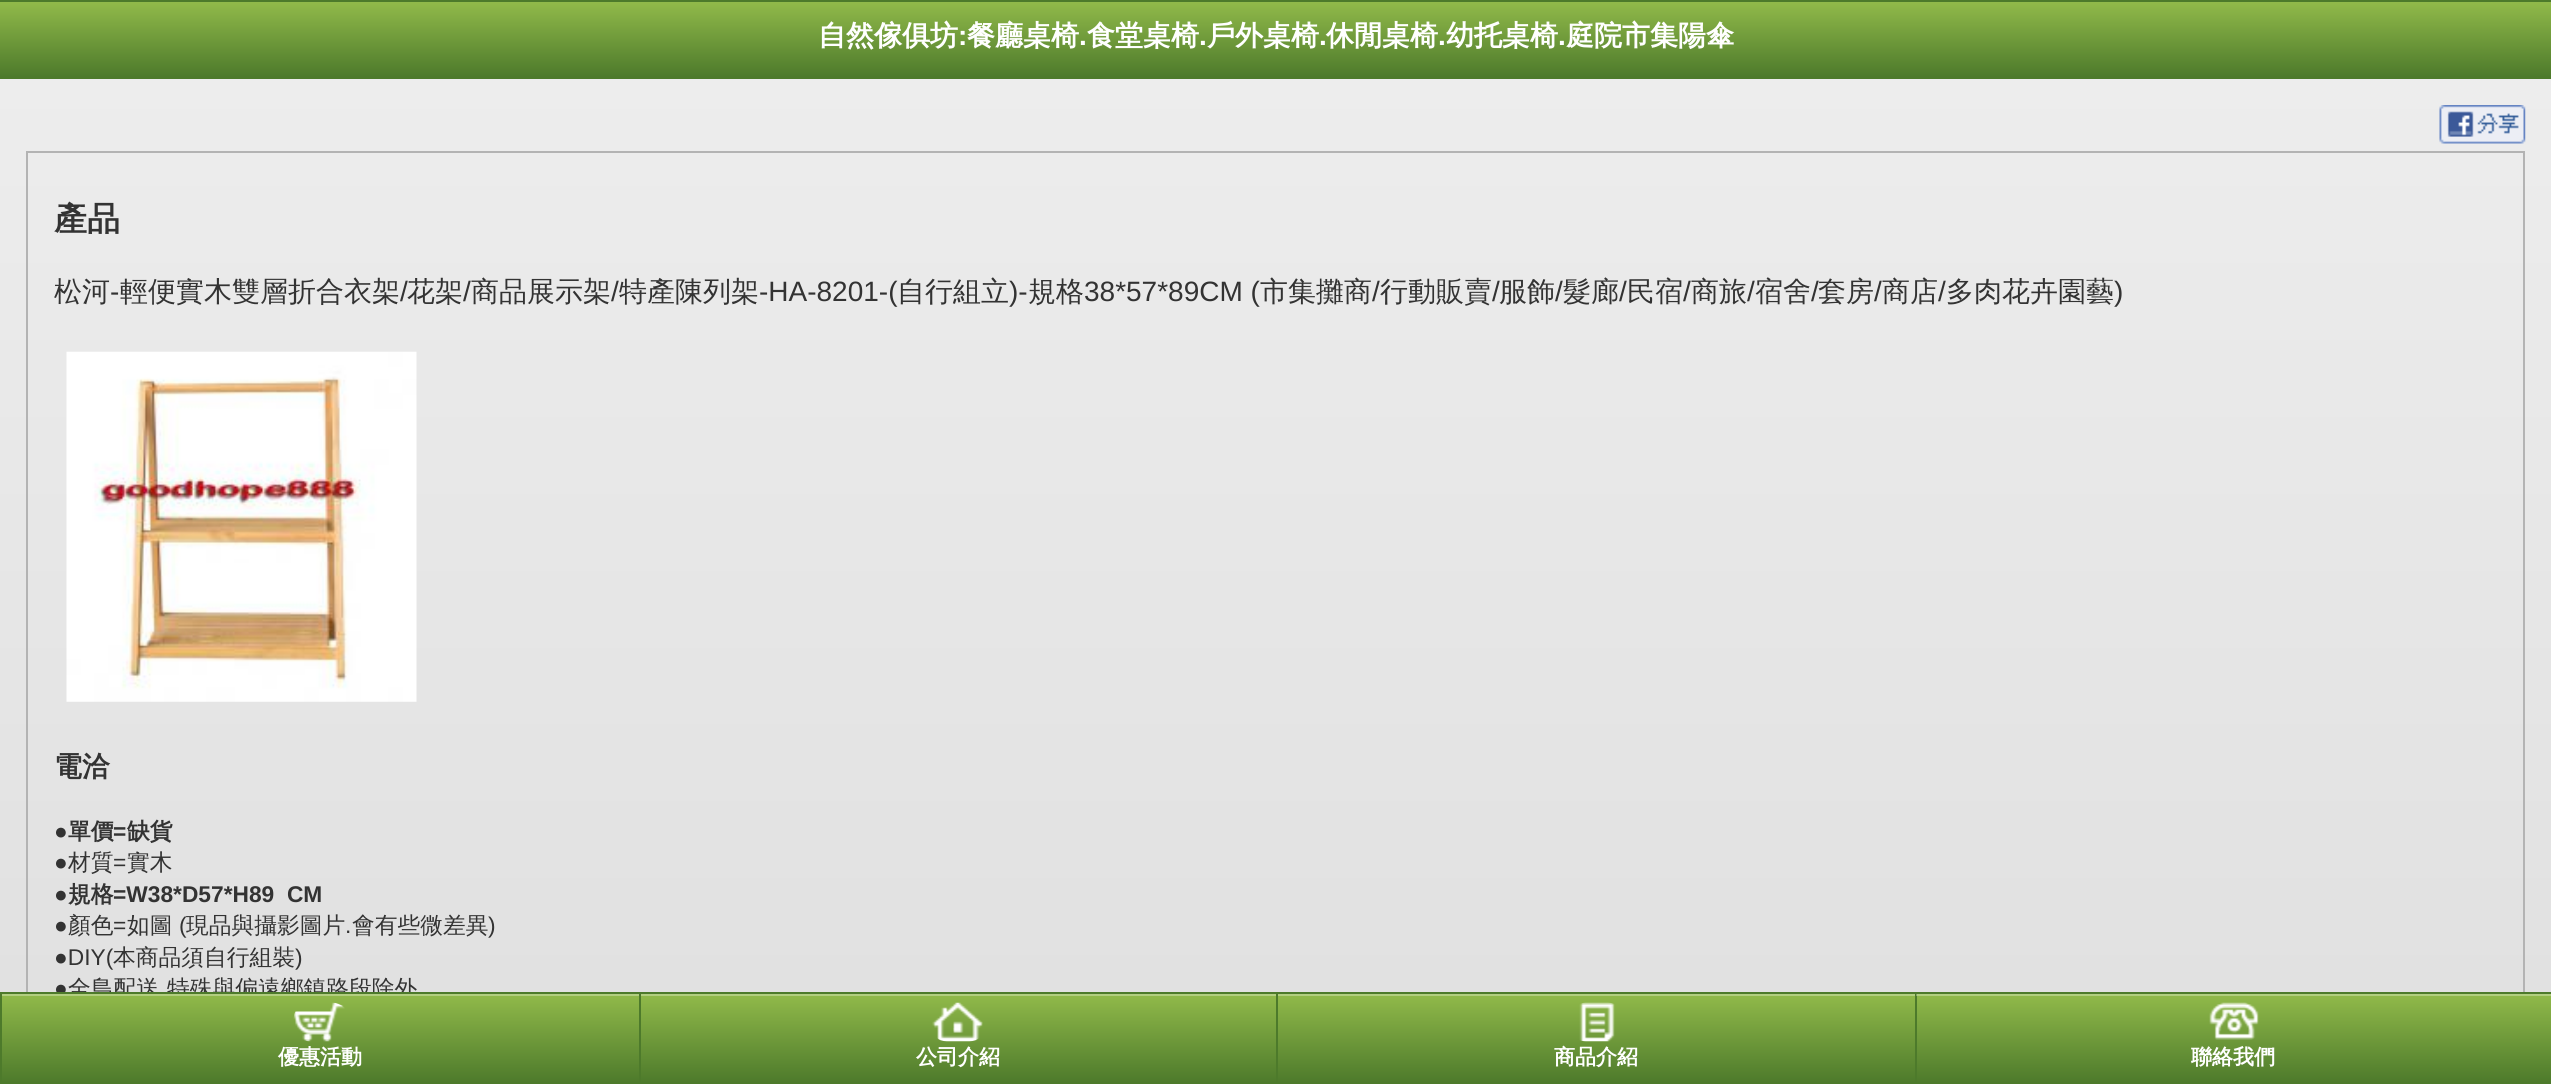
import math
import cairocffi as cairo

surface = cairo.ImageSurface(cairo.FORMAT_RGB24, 2551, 1084)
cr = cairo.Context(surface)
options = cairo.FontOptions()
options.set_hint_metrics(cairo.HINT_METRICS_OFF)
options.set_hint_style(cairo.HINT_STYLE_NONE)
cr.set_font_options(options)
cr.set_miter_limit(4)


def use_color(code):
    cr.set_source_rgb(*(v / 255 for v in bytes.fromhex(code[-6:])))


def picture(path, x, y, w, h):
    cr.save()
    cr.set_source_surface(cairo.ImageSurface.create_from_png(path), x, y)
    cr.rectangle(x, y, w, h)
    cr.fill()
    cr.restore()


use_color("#ffffff")
cr.paint()
gradient = cairo.LinearGradient(0, 0, 0, 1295)
gradient.add_color_stop_rgba(0, 0.933, 0.933, 0.933, 1)
gradient.add_color_stop_rgba(1, 0.867, 0.867, 0.867, 1)
cr.set_source(gradient)
cr.rectangle(0, 79, 2551, 913)
cr.fill()
gradient = cairo.LinearGradient(0, 1.8, 0, 77)
gradient.add_color_stop_rgba(0, 0.569, 0.729, 0.29, 1)
gradient.add_color_stop_rgba(1, 0.302, 0.478, 0.169, 1)
cr.set_source(gradient)
cr.rectangle(0, 2, 2551, 75)
cr.fill()
use_color("#4d7a2b")
cr.rectangle(0, 0, 2551, 2)
cr.fill()
cr.rectangle(0, 77, 2551, 2)
cr.fill()
cr.select_font_face("WenQuanYi Zen Hei", cairo.FONT_SLANT_NORMAL, cairo.FONT_WEIGHT_BOLD)
cr.set_font_size(28)
use_color("#ffffff")
cr.move_to(818, 45)
cr.show_text("自然傢俱坊")
cr.select_font_face("Liberation Sans", cairo.FONT_SLANT_NORMAL, cairo.FONT_WEIGHT_BOLD)
cr.move_to(958, 45)
cr.show_text(":")
cr.select_font_face("WenQuanYi Zen Hei", cairo.FONT_SLANT_NORMAL, cairo.FONT_WEIGHT_BOLD)
cr.move_to(967, 45)
cr.show_text("餐廳桌椅")
cr.select_font_face("Liberation Sans", cairo.FONT_SLANT_NORMAL, cairo.FONT_WEIGHT_BOLD)
cr.move_to(1079, 45)
cr.show_text(".")
cr.select_font_face("WenQuanYi Zen Hei", cairo.FONT_SLANT_NORMAL, cairo.FONT_WEIGHT_BOLD)
cr.move_to(1087, 45)
cr.show_text("食堂桌椅")
cr.select_font_face("Liberation Sans", cairo.FONT_SLANT_NORMAL, cairo.FONT_WEIGHT_BOLD)
cr.move_to(1199, 45)
cr.show_text(".")
cr.select_font_face("WenQuanYi Zen Hei", cairo.FONT_SLANT_NORMAL, cairo.FONT_WEIGHT_BOLD)
cr.move_to(1207, 45)
cr.show_text("戶外桌椅")
cr.select_font_face("Liberation Sans", cairo.FONT_SLANT_NORMAL, cairo.FONT_WEIGHT_BOLD)
cr.move_to(1319, 45)
cr.show_text(".")
cr.select_font_face("WenQuanYi Zen Hei", cairo.FONT_SLANT_NORMAL, cairo.FONT_WEIGHT_BOLD)
cr.move_to(1326, 45)
cr.show_text("休閒桌椅")
cr.select_font_face("Liberation Sans", cairo.FONT_SLANT_NORMAL, cairo.FONT_WEIGHT_BOLD)
cr.move_to(1438, 45)
cr.show_text(".")
cr.select_font_face("WenQuanYi Zen Hei", cairo.FONT_SLANT_NORMAL, cairo.FONT_WEIGHT_BOLD)
cr.move_to(1446, 45)
cr.show_text("幼托桌椅")
cr.select_font_face("Liberation Sans", cairo.FONT_SLANT_NORMAL, cairo.FONT_WEIGHT_BOLD)
cr.move_to(1558, 45)
cr.show_text(".")
cr.select_font_face("WenQuanYi Zen Hei", cairo.FONT_SLANT_NORMAL, cairo.FONT_WEIGHT_BOLD)
cr.move_to(1566, 45)
cr.show_text("庭院市集陽傘")
picture("img1.png", 2439, 105, 87, 39)
cr.rectangle(27, 152, 2497, 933)
use_color("#b3b3b3")
cr.stroke()
cr.set_font_size(33)
use_color("#333333")
cr.move_to(54, 230)
cr.show_text("產品")
cr.select_font_face("WenQuanYi Zen Hei Medium")
cr.set_font_size(28)
cr.move_to(54, 301)
cr.show_text("松河")
cr.select_font_face("Liberation Sans")
cr.move_to(110, 301)
cr.show_text("-")
cr.select_font_face("WenQuanYi Zen Hei Medium")
cr.move_to(120, 301)
cr.show_text("輕便實木雙層折合衣架")
cr.select_font_face("Liberation Sans")
cr.move_to(400, 301)
cr.show_text("/")
cr.select_font_face("WenQuanYi Zen Hei Medium")
cr.move_to(407, 301)
cr.show_text("花架")
cr.select_font_face("Liberation Sans")
cr.move_to(463, 301)
cr.show_text("/")
cr.select_font_face("WenQuanYi Zen Hei Medium")
cr.move_to(471, 301)
cr.show_text("商品展示架")
cr.select_font_face("Liberation Sans")
cr.move_to(611, 301)
cr.show_text("/")
cr.select_font_face("WenQuanYi Zen Hei Medium")
cr.move_to(619, 301)
cr.show_text("特產陳列架")
cr.select_font_face("Liberation Sans")
cr.move_to(759, 301)
cr.show_text("-HA-8201-(")
cr.select_font_face("WenQuanYi Zen Hei Medium")
cr.move_to(897, 301)
cr.show_text("自行組立")
cr.select_font_face("Liberation Sans")
cr.move_to(1009, 301)
cr.show_text(")-")
cr.select_font_face("WenQuanYi Zen Hei Medium")
cr.move_to(1028, 301)
cr.show_text("規格")
cr.select_font_face("Liberation Sans")
cr.move_to(1084, 301)
cr.show_text("38*57*89CM (")
cr.select_font_face("WenQuanYi Zen Hei Medium")
cr.move_to(1260, 301)
cr.show_text("市集攤商")
cr.select_font_face("Liberation Sans")
cr.move_to(1372, 301)
cr.show_text("/")
cr.select_font_face("WenQuanYi Zen Hei Medium")
cr.move_to(1380, 301)
cr.show_text("行動販賣")
cr.select_font_face("Liberation Sans")
cr.move_to(1492, 301)
cr.show_text("/")
cr.select_font_face("WenQuanYi Zen Hei Medium")
cr.move_to(1499, 301)
cr.show_text("服飾")
cr.select_font_face("Liberation Sans")
cr.move_to(1555, 301)
cr.show_text("/")
cr.select_font_face("WenQuanYi Zen Hei Medium")
cr.move_to(1563, 301)
cr.show_text("髮廊")
cr.select_font_face("Liberation Sans")
cr.move_to(1619, 301)
cr.show_text("/")
cr.select_font_face("WenQuanYi Zen Hei Medium")
cr.move_to(1627, 301)
cr.show_text("民宿")
cr.select_font_face("Liberation Sans")
cr.move_to(1683, 301)
cr.show_text("/")
cr.select_font_face("WenQuanYi Zen Hei Medium")
cr.move_to(1691, 301)
cr.show_text("商旅")
cr.select_font_face("Liberation Sans")
cr.move_to(1747, 301)
cr.show_text("/")
cr.select_font_face("WenQuanYi Zen Hei Medium")
cr.move_to(1755, 301)
cr.show_text("宿舍")
cr.select_font_face("Liberation Sans")
cr.move_to(1811, 301)
cr.show_text("/")
cr.select_font_face("WenQuanYi Zen Hei Medium")
cr.move_to(1818, 301)
cr.show_text("套房")
cr.select_font_face("Liberation Sans")
cr.move_to(1874, 301)
cr.show_text("/")
cr.select_font_face("WenQuanYi Zen Hei Medium")
cr.move_to(1882, 301)
cr.show_text("商店")
cr.select_font_face("Liberation Sans")
cr.move_to(1938, 301)
cr.show_text("/")
cr.select_font_face("WenQuanYi Zen Hei Medium")
cr.move_to(1946, 301)
cr.show_text("多肉花卉園藝")
cr.select_font_face("Liberation Sans")
cr.move_to(2114, 301)
cr.show_text(")")
picture("img2.png", 66, 351, 351, 351)
cr.select_font_face("WenQuanYi Zen Hei", cairo.FONT_SLANT_NORMAL, cairo.FONT_WEIGHT_BOLD)
cr.move_to(54, 776)
cr.show_text("電洽")
cr.select_font_face("Liberation Sans", cairo.FONT_SLANT_NORMAL, cairo.FONT_WEIGHT_BOLD)
cr.set_font_size(22.75)
cr.move_to(54, 839)
cr.show_text("●")
cr.select_font_face("WenQuanYi Zen Hei", cairo.FONT_SLANT_NORMAL, cairo.FONT_WEIGHT_BOLD)
cr.move_to(68, 839)
cr.show_text("單價")
cr.select_font_face("Liberation Sans", cairo.FONT_SLANT_NORMAL, cairo.FONT_WEIGHT_BOLD)
cr.move_to(113, 839)
cr.show_text("=")
cr.select_font_face("WenQuanYi Zen Hei", cairo.FONT_SLANT_NORMAL, cairo.FONT_WEIGHT_BOLD)
cr.move_to(127, 839)
cr.show_text("缺貨")
cr.select_font_face("Liberation Sans")
cr.move_to(54, 870)
cr.show_text("●")
cr.select_font_face("WenQuanYi Zen Hei Medium")
cr.move_to(68, 870)
cr.show_text("材質")
cr.select_font_face("Liberation Sans")
cr.move_to(113, 870)
cr.show_text("=")
cr.select_font_face("WenQuanYi Zen Hei Medium")
cr.move_to(127, 870)
cr.show_text("實木")
cr.select_font_face("Liberation Sans", cairo.FONT_SLANT_NORMAL, cairo.FONT_WEIGHT_BOLD)
cr.move_to(54, 902)
cr.show_text("●")
cr.select_font_face("WenQuanYi Zen Hei", cairo.FONT_SLANT_NORMAL, cairo.FONT_WEIGHT_BOLD)
cr.move_to(68, 902)
cr.show_text("規格")
cr.select_font_face("Liberation Sans", cairo.FONT_SLANT_NORMAL, cairo.FONT_WEIGHT_BOLD)
cr.move_to(113, 902)
cr.show_text("=W38*D57*H89  CM")
cr.select_font_face("Liberation Sans")
cr.move_to(54, 933)
cr.show_text("●")
cr.select_font_face("WenQuanYi Zen Hei Medium")
cr.move_to(68, 933)
cr.show_text("顏色")
cr.select_font_face("Liberation Sans")
cr.move_to(113, 933)
cr.show_text("=")
cr.select_font_face("WenQuanYi Zen Hei Medium")
cr.move_to(127, 933)
cr.show_text("如圖")
cr.select_font_face("Liberation Sans")
cr.move_to(179, 933)
cr.show_text("(")
cr.select_font_face("WenQuanYi Zen Hei Medium")
cr.move_to(186, 933)
cr.show_text("現品與攝影圖片")
cr.move_to(352, 933)
cr.show_text("會有些微差異")
cr.select_font_face("Liberation Sans")
cr.move_to(488, 933)
cr.show_text(")")
cr.move_to(345, 933)
cr.show_text(".")
cr.move_to(54, 965)
cr.show_text("●DIY(")
cr.select_font_face("WenQuanYi Zen Hei Medium")
cr.move_to(113, 965)
cr.show_text("本商品須自行組裝")
cr.select_font_face("Liberation Sans")
cr.move_to(295, 965)
cr.show_text(")")
cr.move_to(54, 996)
cr.show_text("●")
cr.select_font_face("WenQuanYi Zen Hei Medium")
cr.move_to(68, 996)
cr.show_text("全島配送")
cr.move_to(167, 996)
cr.show_text("特殊與偏遠鄉鎮路段除外")
use_color("#4d7a2b")
cr.rectangle(0, 992, 2551, 2)
cr.fill()
cr.rectangle(0, 1083, 2551, 1)
cr.fill()
gradient = cairo.LinearGradient(1.8, 994, 1.8, 1083)
gradient.add_color_stop_rgba(0, 0.569, 0.729, 0.29, 1)
gradient.add_color_stop_rgba(1, 0.302, 0.478, 0.169, 1)
cr.set_source(gradient)
cr.rectangle(2, 996, 637, 87)
cr.fill()
use_color("#4d7a2b")
cr.rectangle(0, 994, 2, 89)
cr.fill()
use_color("#b2ce80")
cr.rectangle(2, 994, 637, 2)
cr.fill()
picture("img3.png", 293, 1002, 52, 40)
cr.select_font_face("WenQuanYi Zen Hei", cairo.FONT_SLANT_NORMAL, cairo.FONT_WEIGHT_BOLD)
cr.set_font_size(21)
use_color("#ffffff")
cr.move_to(278, 1064)
cr.show_text("優惠活動")
gradient = cairo.LinearGradient(641, 994, 641, 1083)
gradient.add_color_stop_rgba(0, 0.569, 0.729, 0.29, 1)
gradient.add_color_stop_rgba(1, 0.302, 0.478, 0.169, 1)
cr.set_source(gradient)
cr.rectangle(641, 996, 635, 87)
cr.fill()
use_color("#4d7a2b")
cr.rectangle(639, 994, 2, 89)
cr.fill()
use_color("#b2ce80")
cr.rectangle(641, 994, 635, 2)
cr.fill()
picture("img4.png", 932, 1002, 51, 40)
use_color("#ffffff")
cr.move_to(916, 1064)
cr.show_text("公司介紹")
gradient = cairo.LinearGradient(1278, 994, 1278, 1083)
gradient.add_color_stop_rgba(0, 0.569, 0.729, 0.29, 1)
gradient.add_color_stop_rgba(1, 0.302, 0.478, 0.169, 1)
cr.set_source(gradient)
cr.rectangle(1278, 996, 637, 87)
cr.fill()
use_color("#4d7a2b")
cr.rectangle(1276, 994, 2, 89)
cr.fill()
use_color("#b2ce80")
cr.rectangle(1278, 994, 637, 2)
cr.fill()
picture("img5.png", 1579, 1002, 36, 40)
use_color("#ffffff")
cr.move_to(1554, 1064)
cr.show_text("商品介紹")
gradient = cairo.LinearGradient(1916, 994, 1916, 1083)
gradient.add_color_stop_rgba(0, 0.569, 0.729, 0.29, 1)
gradient.add_color_stop_rgba(1, 0.302, 0.478, 0.169, 1)
cr.set_source(gradient)
cr.rectangle(1917, 994, 634, 89)
cr.fill()
use_color("#4d7a2b")
cr.rectangle(1915, 994, 2, 89)
cr.fill()
cr.set_source_rgba(1, 1, 1, 0.3)
cr.rectangle(1916, 994, 635, 2)
cr.fill()
picture("img6.png", 2209, 1002, 50, 38)
use_color("#ffffff")
cr.move_to(2191, 1064)
cr.show_text("聯絡我們")
surface.write_to_png("result.png")
